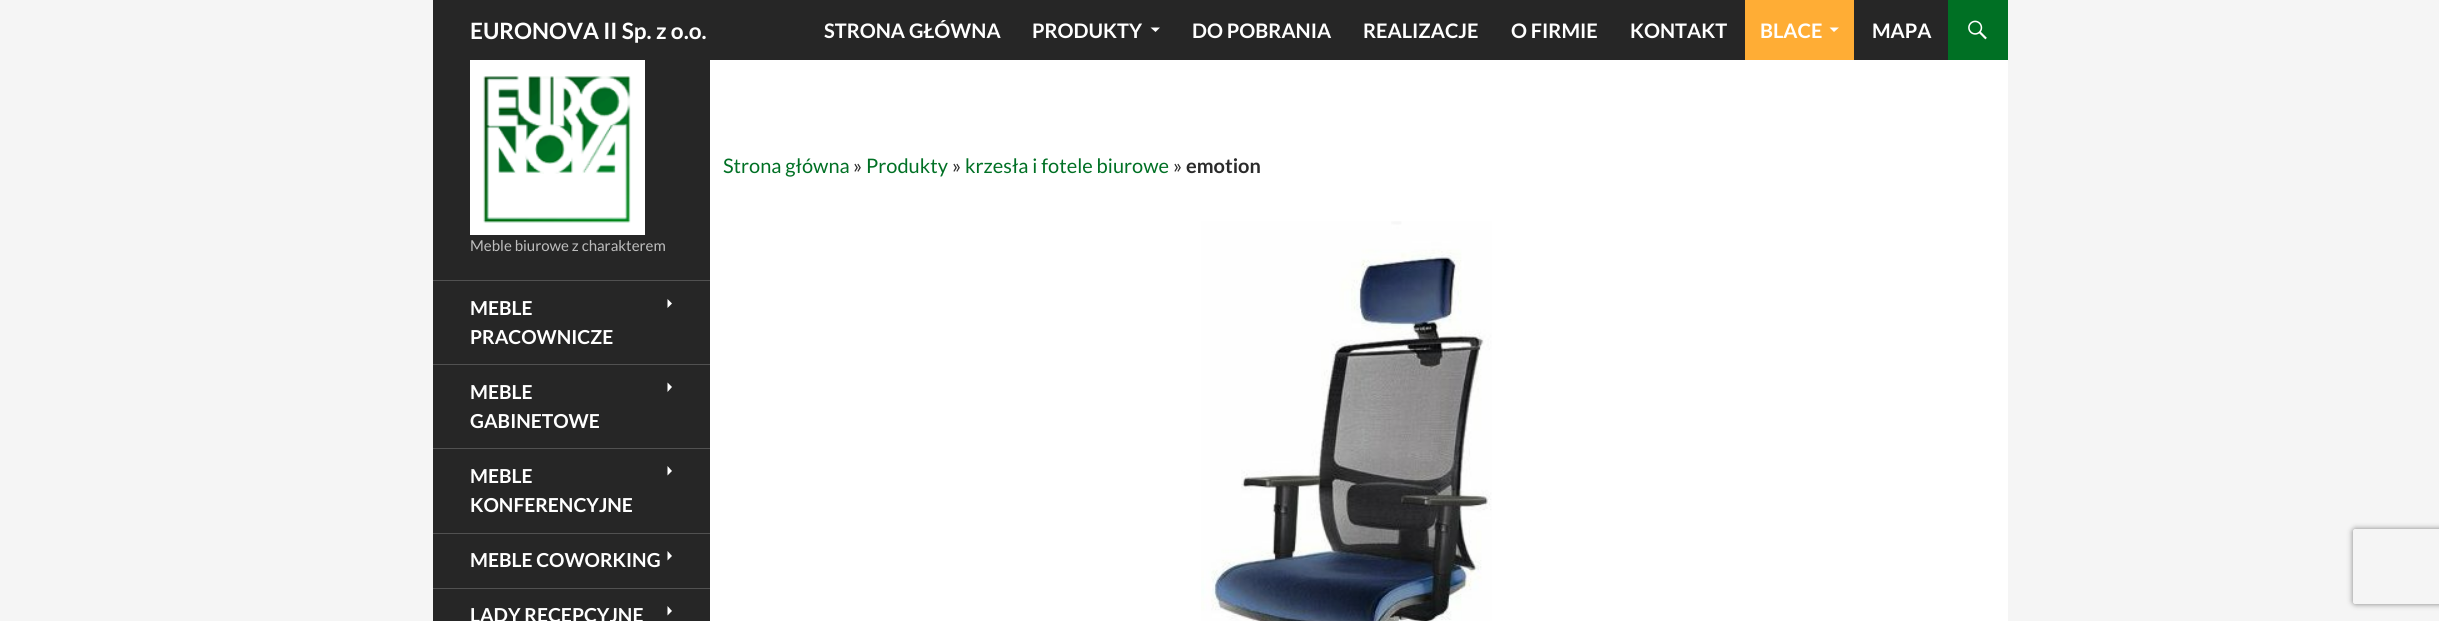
import math
import cairocffi as cairo

surface = cairo.ImageSurface(cairo.FORMAT_RGB24, 2439, 621)
cr = cairo.Context(surface)
options = cairo.FontOptions()
options.set_hint_metrics(cairo.HINT_METRICS_OFF)
options.set_hint_style(cairo.HINT_STYLE_NONE)
cr.set_font_options(options)
cr.set_miter_limit(4)


def use_color(code):
    cr.set_source_rgb(*(v / 255 for v in bytes.fromhex(code[-6:])))


def round_rect(x, y, w, h, r):
    cr.new_sub_path()
    for i, (u, v) in enumerate([(x + w - r, y + h - r), (x + r, y + h - r), (x + r, y + r), (x + w - r, y + r)]):
        cr.arc(u, v, r, i * math.pi / 2, (i + 1) * math.pi / 2)
    cr.close_path()


def shadow(x, y, w, h, r, blur, alpha):
    cr.push_group_with_content(cairo.CONTENT_ALPHA)
    cr.set_operator(cairo.OPERATOR_SOURCE)
    for i in range(15, -16, -2):
        e = blur * i / 6
        if min(w, h) + 2 * e > 0:
            cr.set_source_rgba(0, 0, 0, alpha * math.erfc((i - 1) / 8.5) / 2)
            round_rect(x - e, y - e, w + 2 * e, h + 2 * e, max(0, min(r + e + blur * .6, min(w, h) / 2 + e)))
            cr.fill()
    cr.mask(cr.pop_group())


def picture(path, x, y, w, h):
    cr.save()
    cr.set_source_surface(cairo.ImageSurface.create_from_png(path), x, y)
    cr.rectangle(x, y, w, h)
    cr.fill()
    cr.restore()


use_color("#f5f5f5")
cr.paint()
use_color("#ffffff")
cr.rectangle(710, 60, 1298, 561)
cr.fill()
use_color("#262626")
cr.rectangle(433, 0, 1515, 60)
cr.fill()
cr.select_font_face("Lato", cairo.FONT_SLANT_NORMAL, cairo.FONT_WEIGHT_BOLD)
cr.set_font_size(22.5)
use_color("#ffffff")
cr.move_to(470, 39)
cr.show_text("EURONOVA II Sp. z o.o.")
cr.set_font_size(20)
cr.move_to(824, 38)
cr.show_text("STRONA GŁÓWNA")
cr.move_to(1032, 38)
cr.show_text("PRODUKTY")
cr.new_path()
cr.move_to(1150.5, 27.5)
cr.line_to(1155.5, 32)
cr.line_to(1160, 27.5)
cr.close_path()
cr.fill()
cr.move_to(1192, 38)
cr.show_text("DO POBRANIA")
cr.move_to(1363, 38)
cr.show_text("REALIZACJE")
cr.move_to(1511, 38)
cr.show_text("O FIRMIE")
cr.move_to(1630, 38)
cr.show_text("KONTAKT")
use_color("#ffad35")
cr.rectangle(1745, 0, 109, 60)
cr.fill()
use_color("#ffffff")
cr.move_to(1760, 38)
cr.show_text("BLACE")
cr.new_path()
cr.move_to(1829.5, 27.5)
cr.line_to(1834, 32)
cr.line_to(1839, 27.5)
cr.close_path()
cr.fill()
cr.move_to(1872, 38)
cr.show_text("MAPA")
use_color("#007024")
cr.rectangle(1948, 0, 60, 60)
cr.fill()
picture("img1.png", 1968, 20, 19, 20)
use_color("#262626")
cr.rectangle(433, 60, 277, 561)
cr.fill()
cr.select_font_face("Lato")
use_color("#007024")
cr.move_to(723, 173)
cr.show_text("Strona główna")
use_color("#2b2b2b")
cr.move_to(853, 173)
cr.show_text("»")
use_color("#007024")
cr.move_to(866, 173)
cr.show_text("Produkty")
use_color("#2b2b2b")
cr.move_to(952, 173)
cr.show_text("»")
use_color("#007024")
cr.move_to(965, 173)
cr.show_text("krzesła i fotele biurowe")
use_color("#2b2b2b")
cr.move_to(1173, 173)
cr.show_text("»")
cr.select_font_face("Lato", cairo.FONT_SLANT_NORMAL, cairo.FONT_WEIGHT_BOLD)
cr.move_to(1186, 173)
cr.show_text("emotion")
picture("img2.png", 1201, 221, 291, 400)
picture("img3.png", 470, 60, 175, 175)
cr.select_font_face("Lato")
cr.set_font_size(15)
use_color("#bebebe")
cr.move_to(470, 251)
cr.show_text("Meble biurowe z charakterem")
use_color("#515151")
cr.rectangle(433, 280, 277, 1)
cr.fill()
cr.select_font_face("Lato", cairo.FONT_SLANT_NORMAL, cairo.FONT_WEIGHT_BOLD)
cr.set_font_size(19.25)
use_color("#ffffff")
cr.move_to(470, 315)
cr.show_text("MEBLE")
cr.new_path()
cr.move_to(667.5, 308)
cr.line_to(672, 303.5)
cr.line_to(667.5, 299)
cr.close_path()
cr.fill()
cr.move_to(470, 344)
cr.show_text("PRACOWNICZE")
use_color("#515151")
cr.rectangle(433, 364, 277, 1)
cr.fill()
use_color("#ffffff")
cr.move_to(470, 399)
cr.show_text("MEBLE")
cr.new_path()
cr.move_to(667.5, 392)
cr.line_to(672, 387)
cr.line_to(667.5, 382.5)
cr.close_path()
cr.fill()
cr.move_to(470, 428)
cr.show_text("GABINETOWE")
use_color("#515151")
cr.rectangle(433, 448, 277, 1)
cr.fill()
use_color("#ffffff")
cr.move_to(470, 483)
cr.show_text("MEBLE")
cr.new_path()
cr.move_to(667.5, 475.5)
cr.line_to(672, 471)
cr.line_to(667.5, 466)
cr.close_path()
cr.fill()
cr.move_to(470, 512)
cr.show_text("KONFERENCYJNE")
use_color("#515151")
cr.rectangle(433, 533, 277, 1)
cr.fill()
use_color("#ffffff")
cr.move_to(470, 567)
cr.show_text("MEBLE COWORKING")
cr.new_path()
cr.move_to(667.5, 560.5)
cr.line_to(672, 556)
cr.line_to(667.5, 551)
cr.close_path()
cr.fill()
use_color("#515151")
cr.rectangle(433, 588, 277, 1)
cr.fill()
use_color("#ffffff")
cr.move_to(470, 622)
cr.show_text("LADY RECEPCYJNE")
cr.new_path()
cr.move_to(667.5, 615.5)
cr.line_to(672, 611)
cr.line_to(667.5, 606)
cr.close_path()
cr.fill()
cr.save()
cr.set_fill_rule(cairo.FILL_RULE_EVEN_ODD)
cr.new_path()
cr.move_to(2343, 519)
cr.line_to(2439, 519)
cr.line_to(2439, 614)
cr.line_to(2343, 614)
cr.close_path()
cr.move_to(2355.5, 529)
cr.line_to(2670.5, 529)
cr.curve_to(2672, 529, 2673, 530, 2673, 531.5)
cr.line_to(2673, 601.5)
cr.curve_to(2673, 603, 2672, 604, 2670.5, 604)
cr.line_to(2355.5, 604)
cr.curve_to(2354, 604, 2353, 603, 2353, 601.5)
cr.line_to(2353, 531.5)
cr.curve_to(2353, 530, 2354, 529, 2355.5, 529)
cr.close_path()
cr.clip()
use_color("#808080")
shadow(2353, 529, 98, 75, 2.5, 3, 1)
cr.restore()
surface.write_to_png("result.png")
